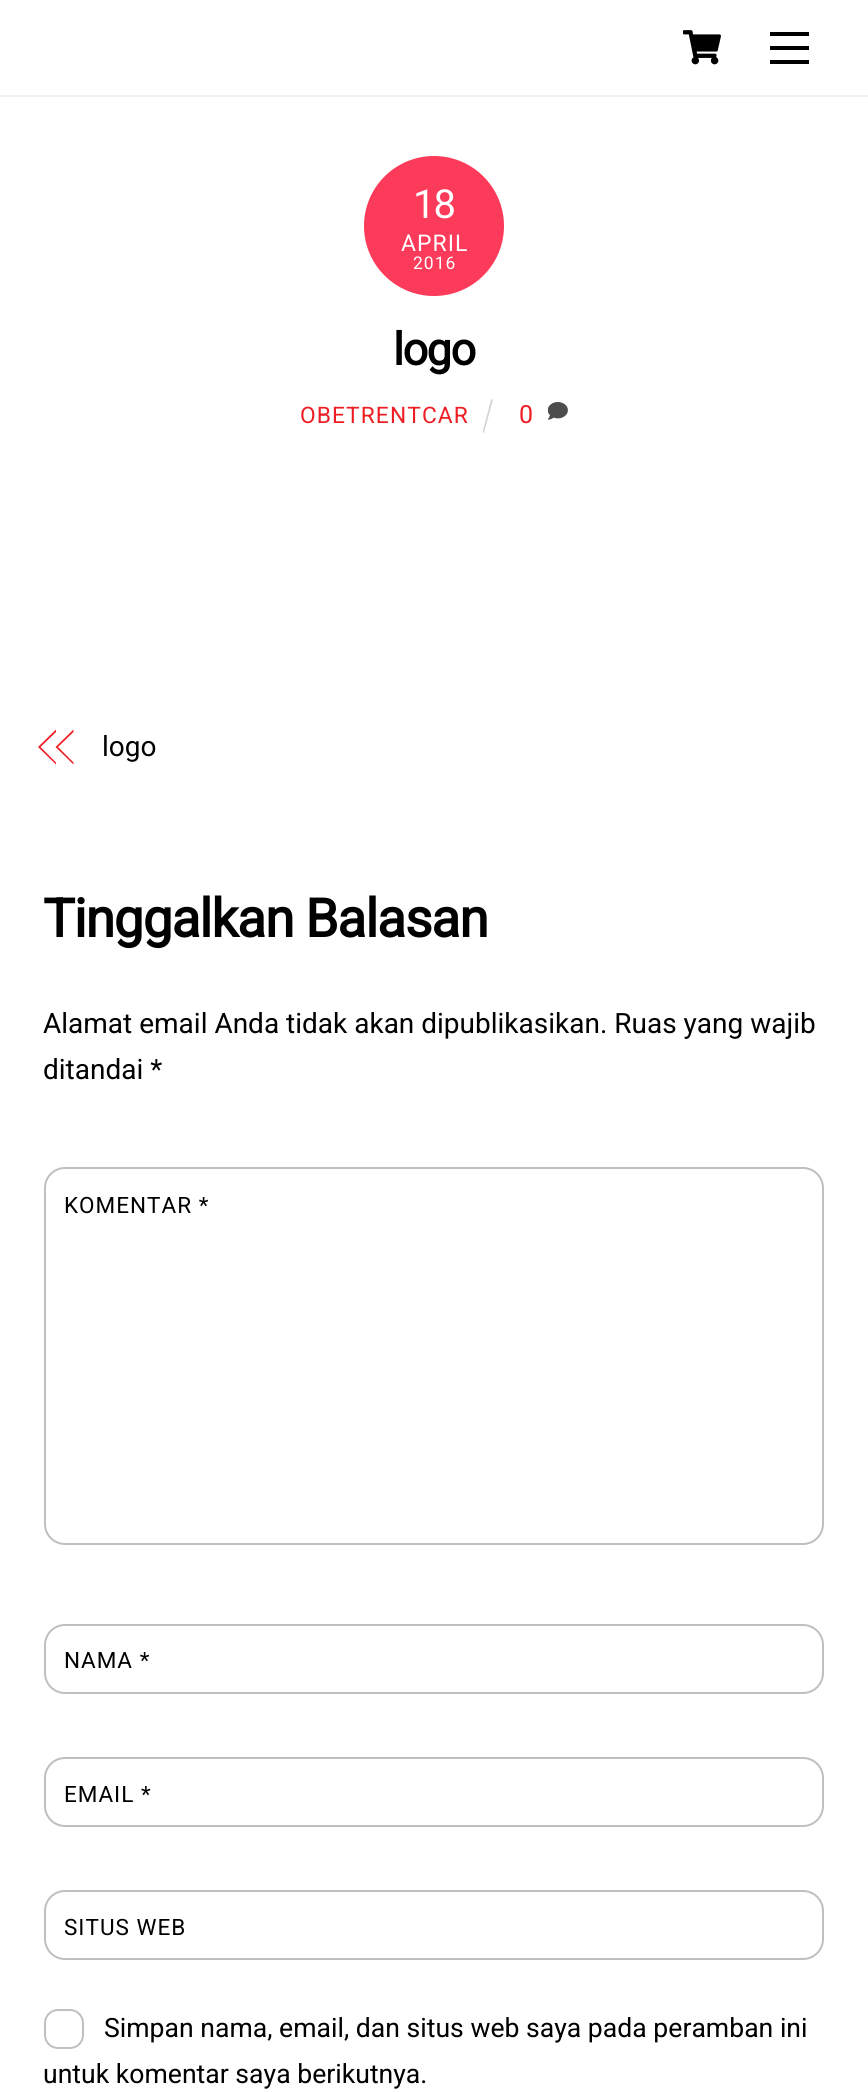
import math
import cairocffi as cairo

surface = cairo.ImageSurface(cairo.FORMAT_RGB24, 868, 2092)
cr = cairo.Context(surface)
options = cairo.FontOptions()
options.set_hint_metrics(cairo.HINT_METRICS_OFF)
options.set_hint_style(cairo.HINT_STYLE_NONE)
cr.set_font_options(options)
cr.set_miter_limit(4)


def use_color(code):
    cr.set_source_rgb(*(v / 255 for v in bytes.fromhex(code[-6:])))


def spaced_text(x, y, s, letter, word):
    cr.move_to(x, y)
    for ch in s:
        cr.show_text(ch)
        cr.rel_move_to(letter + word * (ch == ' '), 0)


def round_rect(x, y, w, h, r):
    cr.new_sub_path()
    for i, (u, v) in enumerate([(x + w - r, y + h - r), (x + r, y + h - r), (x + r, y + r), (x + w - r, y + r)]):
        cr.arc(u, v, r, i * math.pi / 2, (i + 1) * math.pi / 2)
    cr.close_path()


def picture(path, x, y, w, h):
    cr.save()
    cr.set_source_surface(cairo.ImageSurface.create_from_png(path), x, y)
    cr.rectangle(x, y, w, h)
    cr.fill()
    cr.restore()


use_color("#ffffff")
cr.paint()
use_color("#f2f2f2")
cr.rectangle(0, 95, 868, 2)
cr.fill()
picture("img1.png", 683, 30, 38, 35)
use_color("#000000")
cr.rectangle(770, 60, 39, 4)
cr.fill()
cr.rectangle(770, 32, 39, 4)
cr.fill()
cr.rectangle(770, 46, 39, 4)
cr.fill()
use_color("#fc3a59")
cr.arc(434, 226, 70, 0, 2 * math.pi)
cr.fill()
cr.select_font_face("Roboto")
cr.set_font_size(40)
use_color("#ffffff")
spaced_text(413, 218, "18", -2, 0)
cr.set_font_size(23)
spaced_text(401, 251, "APRIL", 1, 0)
cr.set_font_size(17.5)
spaced_text(413, 269, "2016", 1, 0)
cr.select_font_face("Roboto", cairo.FONT_SLANT_NORMAL, cairo.FONT_WEIGHT_BOLD)
cr.set_font_size(45)
use_color("#000000")
spaced_text(393, 365, "logo", -1.5, 0)
cr.select_font_face("Roboto")
cr.set_font_size(22.75)
use_color("#ed1e24")
spaced_text(300, 423, "OBETRENTCAR", 1.1, 0)
use_color("#d3d3d3")
cr.new_path()
cr.move_to(491, 399.5)
cr.line_to(493, 399.5)
cr.line_to(484, 432.5)
cr.line_to(482.5, 432.5)
cr.close_path()
cr.fill()
cr.set_font_size(25)
use_color("#ed1e24")
cr.move_to(519, 423)
cr.show_text("0")
picture("img2.png", 548, 402, 20, 18)
cr.new_path()
cr.move_to(38, 747)
cr.line_to(56, 729.5)
cr.line_to(56, 732)
cr.line_to(40.5, 747)
cr.close_path()
cr.move_to(56, 764.5)
cr.line_to(38, 747)
cr.line_to(40.5, 747)
cr.line_to(56, 762.5)
cr.close_path()
cr.fill()
cr.new_path()
cr.move_to(55.5, 747)
cr.line_to(73.5, 729.5)
cr.line_to(73.5, 732)
cr.line_to(58, 747)
cr.close_path()
cr.move_to(73.5, 764.5)
cr.line_to(55.5, 747)
cr.line_to(58, 747)
cr.line_to(73.5, 762.5)
cr.close_path()
cr.fill()
cr.set_font_size(28)
use_color("#000000")
cr.move_to(102, 756)
cr.show_text("logo")
cr.select_font_face("Roboto", cairo.FONT_SLANT_NORMAL, cairo.FONT_WEIGHT_BOLD)
cr.set_font_size(53.25)
spaced_text(43, 937, "Tinggalkan Balasan", -1.1, 0)
cr.select_font_face("Roboto")
cr.set_font_size(28)
cr.move_to(43, 1033)
cr.show_text("Alamat email Anda tidak akan dipublikasikan. Ruas yang wajib")
cr.move_to(43, 1079)
cr.show_text("ditandai *")
round_rect(45, 1168, 778, 376, 20)
use_color("#bfbfbf")
cr.stroke()
cr.set_font_size(22.5)
use_color("#000000")
spaced_text(64, 1213, "KOMENTAR *", 1, 0)
round_rect(45, 1625, 778, 68, 20)
use_color("#bfbfbf")
cr.stroke()
use_color("#000000")
spaced_text(64, 1668, "NAMA *", 1, 0)
round_rect(45, 1758, 778, 68, 20)
use_color("#bfbfbf")
cr.stroke()
use_color("#000000")
spaced_text(64, 1802, "EMAIL *", 1, 0)
round_rect(45, 1891, 778, 68, 20)
use_color("#bfbfbf")
cr.stroke()
use_color("#000000")
spaced_text(64, 1935, "SITUS WEB", 1, 0)
round_rect(45, 2010, 38, 38, 13)
use_color("#bfbfbf")
cr.stroke()
cr.set_font_size(26.6)
use_color("#000000")
cr.move_to(104, 2037)
cr.show_text("Simpan nama, email, dan situs web saya pada peramban ini")
cr.move_to(43, 2083)
cr.show_text("untuk komentar saya berikutnya.")
surface.write_to_png("result.png")
